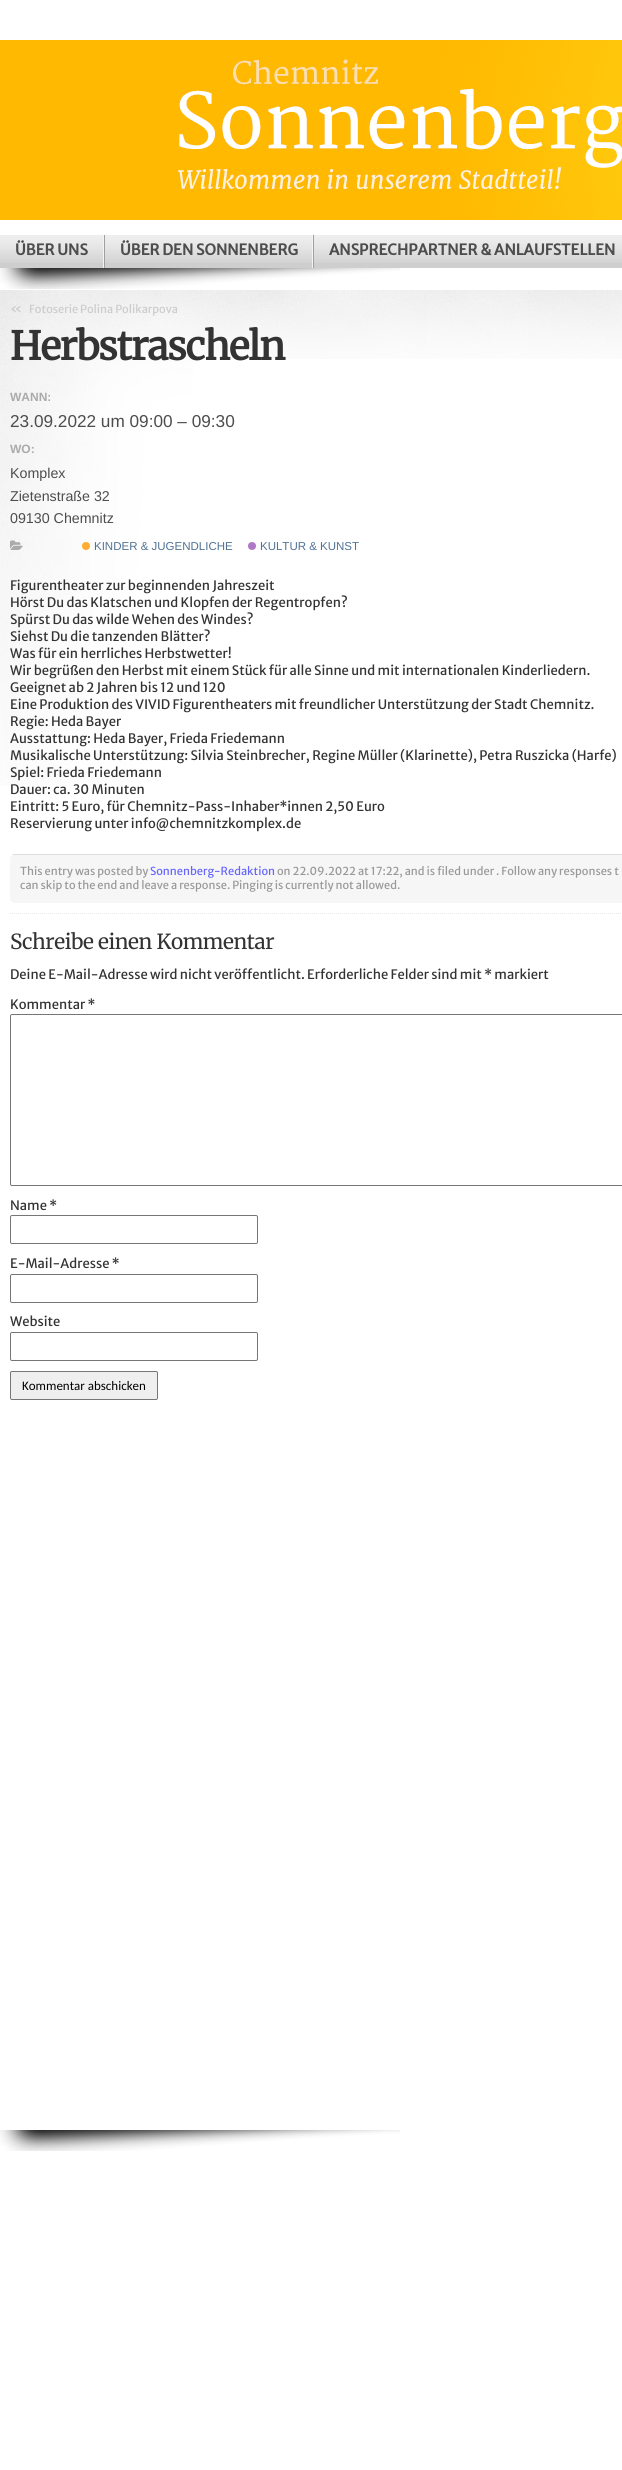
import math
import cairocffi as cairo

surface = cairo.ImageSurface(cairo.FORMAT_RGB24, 622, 2470)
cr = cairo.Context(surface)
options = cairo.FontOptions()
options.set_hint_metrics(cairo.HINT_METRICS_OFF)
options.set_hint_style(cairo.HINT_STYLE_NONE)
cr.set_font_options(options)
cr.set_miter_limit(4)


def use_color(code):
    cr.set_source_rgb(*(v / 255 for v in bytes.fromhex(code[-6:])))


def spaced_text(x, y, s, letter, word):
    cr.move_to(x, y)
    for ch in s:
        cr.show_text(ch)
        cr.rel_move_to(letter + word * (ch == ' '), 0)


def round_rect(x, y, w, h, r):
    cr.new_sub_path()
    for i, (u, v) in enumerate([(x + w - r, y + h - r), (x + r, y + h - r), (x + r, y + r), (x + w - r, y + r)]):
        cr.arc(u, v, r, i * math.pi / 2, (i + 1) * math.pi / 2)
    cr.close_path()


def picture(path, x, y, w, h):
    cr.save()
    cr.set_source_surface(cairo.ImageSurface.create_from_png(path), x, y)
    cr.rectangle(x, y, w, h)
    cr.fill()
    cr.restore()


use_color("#ffffff")
cr.paint()
picture("img1.png", 0, 40, 622, 180)
picture("img2.png", 0, 268, 400, 21)
use_color("#cecece")
cr.rectangle(0, 263, 622, 5)
cr.fill()
picture("img3.png", 0, 235, 622, 28)
picture("img4.png", 103, 235, 2, 33)
cr.select_font_face("Merriweather Sans", cairo.FONT_SLANT_NORMAL, cairo.FONT_WEIGHT_BOLD)
cr.set_font_size(15)
use_color("#4d4d4d")
cr.move_to(15, 255)
cr.show_text("ÜBER UNS")
picture("img4.png", 312, 235, 2, 33)
cr.move_to(120, 255)
cr.show_text("ÜBER DEN SONNENBERG")
cr.move_to(329, 255)
cr.show_text("ANSPRECHPARTNER & ANLAUFSTELLEN")
picture("img5.png", 193, 290, 429, 69)
picture("img6.png", 0, 290, 193, 496)
cr.select_font_face("Merriweather Sans")
cr.set_font_size(13)
use_color("#cccccc")
cr.move_to(10, 313)
cr.show_text("«")
cr.set_font_size(11.05)
cr.move_to(29, 313)
cr.show_text("Fotoserie Polina Polikarpova")
cr.new_path()
cr.move_to(10, 913.5)
cr.line_to(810, 913.5)
use_color("#e8e8e8")
cr.set_line_width(1)
cr.set_dash([1, 1])
cr.stroke()
cr.select_font_face("Merriweather", cairo.FONT_SLANT_NORMAL, cairo.FONT_WEIGHT_BOLD)
cr.set_font_size(39)
use_color("#333333")
spaced_text(10, 360, "Herbstrascheln", -1, 0)
cr.select_font_face("Liberation Sans", cairo.FONT_SLANT_NORMAL, cairo.FONT_WEIGHT_BOLD)
cr.set_font_size(12)
use_color("#aaaaaa")
cr.move_to(10, 401)
cr.show_text("WANN:")
cr.select_font_face("Liberation Sans")
cr.set_font_size(17.2)
use_color("#4d4d4d")
cr.move_to(10, 427)
cr.show_text("23.09.2022 um 09:00 – 09:30")
cr.select_font_face("Liberation Sans", cairo.FONT_SLANT_NORMAL, cairo.FONT_WEIGHT_BOLD)
cr.set_font_size(12)
use_color("#aaaaaa")
cr.move_to(10, 453)
cr.show_text("WO:")
cr.select_font_face("Liberation Sans")
cr.set_font_size(14.25)
use_color("#4d4d4d")
cr.move_to(10, 478)
cr.show_text("Komplex")
cr.move_to(10, 501)
cr.show_text("Zietenstraße 32")
cr.move_to(10, 523)
cr.show_text("09130 Chemnitz")
picture("img7.png", 10, 540, 13, 10)
use_color("#fead32")
cr.arc(86, 546, 4, 0, 2 * math.pi)
cr.fill()
cr.set_font_size(11.5)
use_color("#507295")
cr.move_to(94, 550)
cr.show_text("KINDER & JUGENDLICHE")
use_color("#af7ac5")
cr.new_path()
cr.arc(252, 546, 4, 0, 2 * math.pi)
cr.fill()
use_color("#507295")
cr.move_to(260, 550)
cr.show_text("KULTUR & KUNST")
cr.select_font_face("Merriweather Sans")
cr.set_font_size(13)
use_color("#333333")
cr.move_to(10, 590)
cr.show_text("Figurentheater zur beginnenden Jahreszeit")
cr.move_to(10, 607)
cr.show_text("Hörst Du das Klatschen und Klopfen der Regentropfen?")
cr.move_to(10, 624)
cr.show_text("Spürst Du das wilde Wehen des Windes?")
cr.move_to(10, 641)
cr.show_text("Siehst Du die tanzenden Blätter?")
cr.move_to(10, 658)
cr.show_text("Was für ein herrliches Herbstwetter!")
cr.move_to(10, 675)
cr.show_text("Wir begrüßen den Herbst mit einem Stück für alle Sinne und mit internationalen Kinderliedern.")
cr.move_to(10, 692)
cr.show_text("Geeignet ab 2 Jahren bis 12 und 120")
cr.move_to(10, 709)
cr.show_text("Eine Produktion des VIVID Figurentheaters mit freundlicher Unterstützung der Stadt Chemnitz.")
cr.move_to(10, 726)
cr.show_text("Regie: Heda Bayer")
cr.move_to(10, 743)
cr.show_text("Ausstattung: Heda Bayer, Frieda Friedemann")
cr.move_to(10, 760)
cr.show_text("Musikalische Unterstützung: Silvia Steinbrecher, Regine Müller (Klarinette), Petra Ruszicka (Harfe)")
cr.move_to(10, 777)
cr.show_text("Spiel: Frieda Friedemann")
cr.move_to(10, 794)
cr.show_text("Dauer: ca. 30 Minuten")
cr.move_to(10, 811)
cr.show_text("Eintritt: 5 Euro, für Chemnitz-Pass-Inhaber*innen 2,50 Euro")
cr.move_to(10, 828)
cr.show_text("Reservierung unter info@chemnitzkomplex.de")
use_color("#f6f6f6")
round_rect(10, 854, 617, 49, 5)
cr.fill()
use_color("#dddddd")
cr.rectangle(13, 854, 609, 1)
cr.fill()
cr.set_font_size(11.05)
use_color("#999999")
cr.move_to(20, 875)
cr.show_text("This entry was posted by")
use_color("#6666ff")
cr.move_to(150, 875)
cr.show_text("Sonnenberg-Redaktion")
use_color("#999999")
cr.move_to(277, 875)
cr.show_text("on 22.09.2022 at 17:22, and is filed under . Follow any responses t")
cr.move_to(20, 889)
cr.show_text("can skip to the end and leave a response. Pinging is currently not allowed.")
cr.select_font_face("Merriweather Light")
cr.set_font_size(20.75)
use_color("#333333")
spaced_text(10, 949, "Schreibe einen Kommentar", -0.4, 0)
cr.select_font_face("Merriweather Sans")
cr.set_font_size(13)
cr.move_to(10, 979)
cr.show_text("Deine E-Mail-Adresse wird nicht veröffentlicht. Erforderliche Felder sind mit * markiert")
cr.move_to(10, 1009)
cr.show_text("Kommentar *")
round_rect(10.5, 1014.5, 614, 171, 1.5)
use_color("#767676")
cr.set_dash([])
cr.stroke()
use_color("#333333")
cr.move_to(10, 1210)
cr.show_text("Name *")
round_rect(10.5, 1215.5, 247, 28, 1.5)
use_color("#767676")
cr.stroke()
use_color("#333333")
cr.move_to(10, 1268)
cr.show_text("E-Mail-Adresse *")
round_rect(10.5, 1274.5, 247, 28, 1.5)
use_color("#767676")
cr.stroke()
use_color("#333333")
cr.move_to(10, 1326)
cr.show_text("Website")
round_rect(10.5, 1332.5, 247, 28, 1.5)
use_color("#767676")
cr.stroke()
use_color("#efefef")
round_rect(10.5, 1371.5, 147, 28, 1.5)
cr.fill_preserve()
use_color("#767676")
cr.stroke()
cr.select_font_face("Carlito")
use_color("#000000")
cr.move_to(22, 1390)
cr.show_text("Kommentar abschicken")
picture("img2.png", 0, 2130, 400, 21)
surface.write_to_png("result.png")
